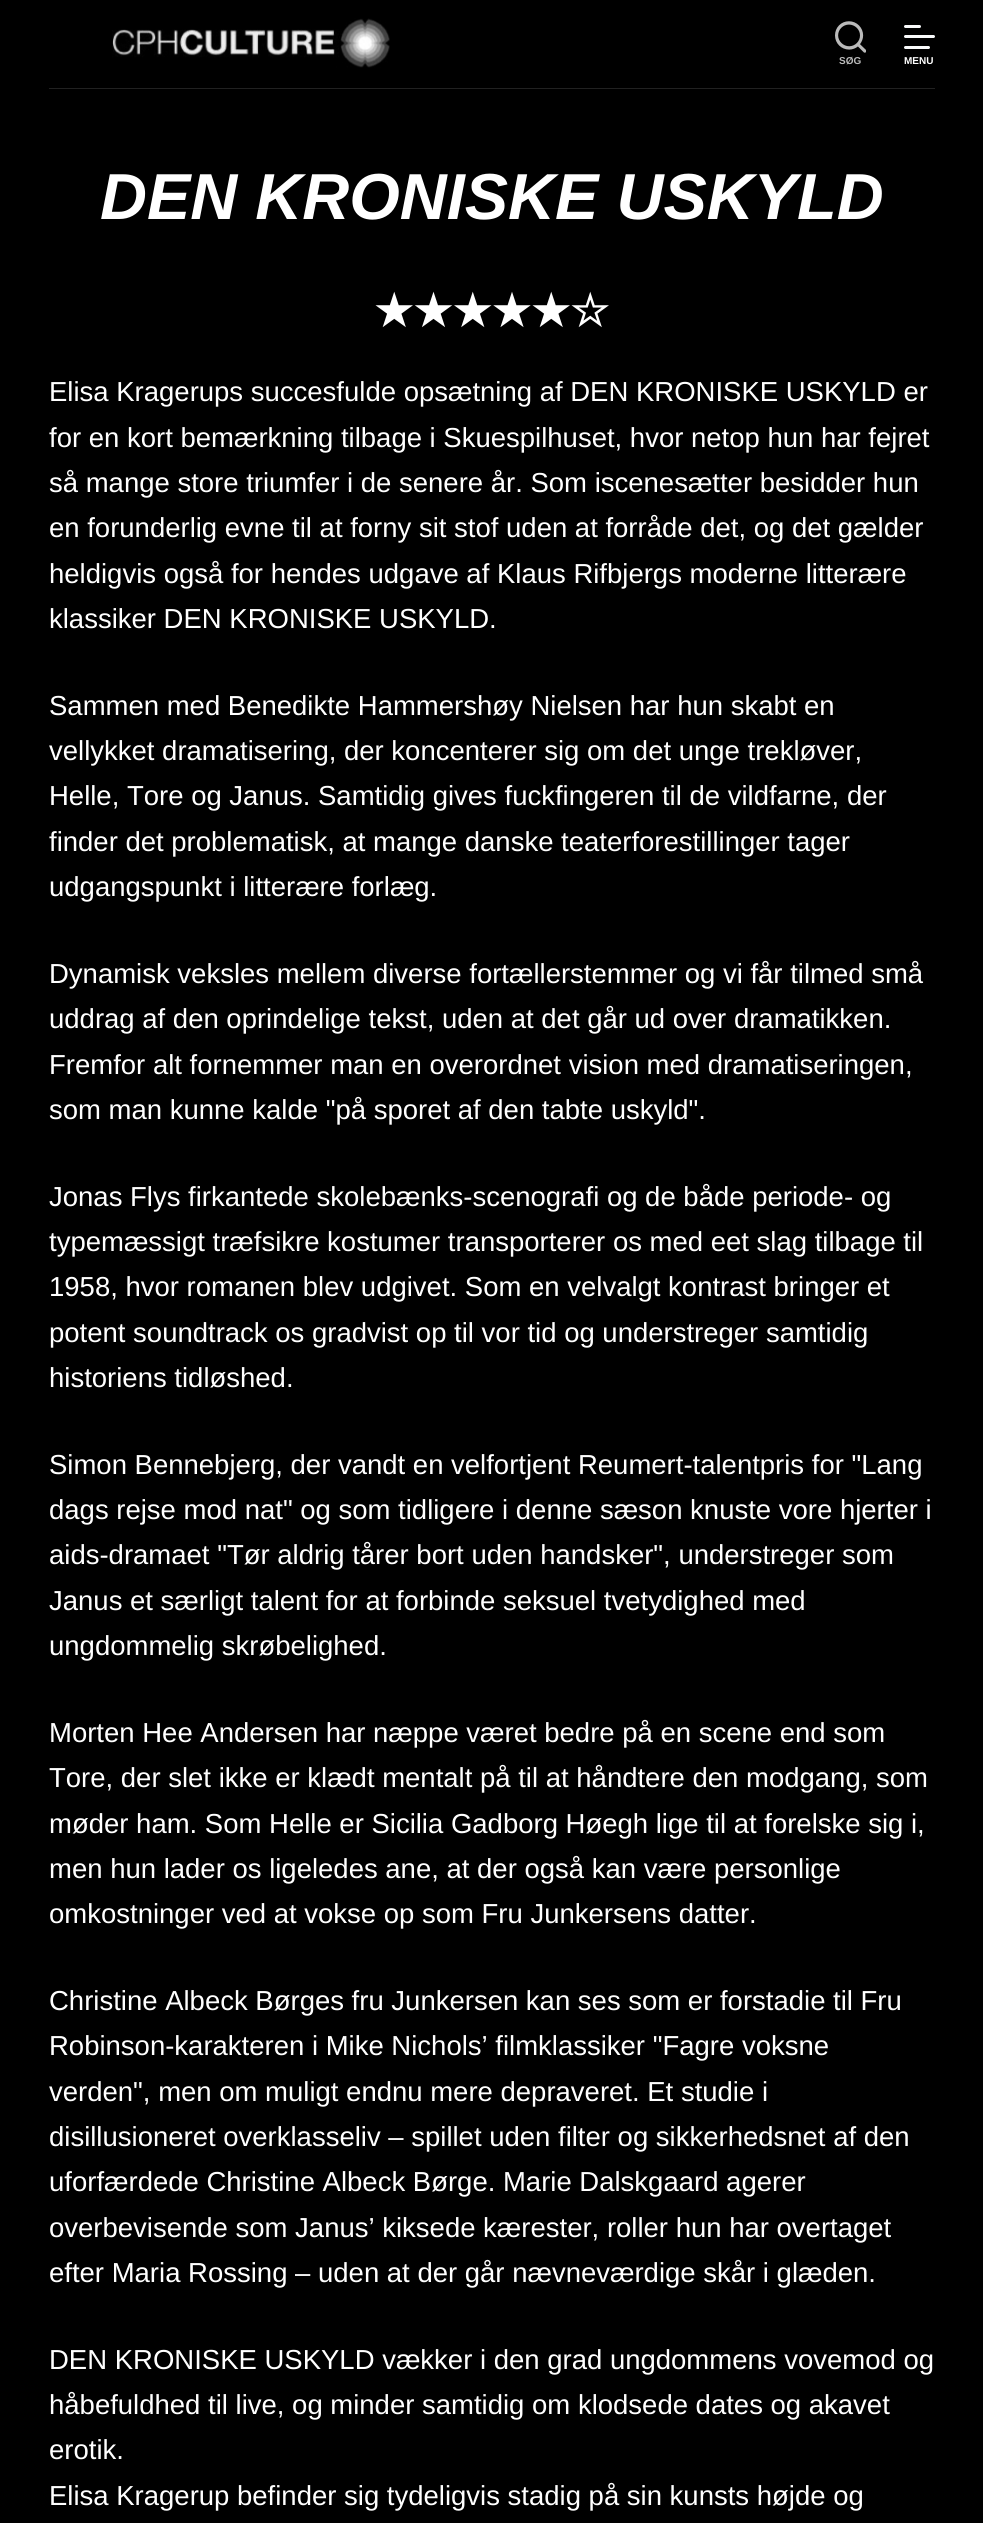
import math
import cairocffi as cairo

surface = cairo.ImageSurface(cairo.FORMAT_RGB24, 983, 2523)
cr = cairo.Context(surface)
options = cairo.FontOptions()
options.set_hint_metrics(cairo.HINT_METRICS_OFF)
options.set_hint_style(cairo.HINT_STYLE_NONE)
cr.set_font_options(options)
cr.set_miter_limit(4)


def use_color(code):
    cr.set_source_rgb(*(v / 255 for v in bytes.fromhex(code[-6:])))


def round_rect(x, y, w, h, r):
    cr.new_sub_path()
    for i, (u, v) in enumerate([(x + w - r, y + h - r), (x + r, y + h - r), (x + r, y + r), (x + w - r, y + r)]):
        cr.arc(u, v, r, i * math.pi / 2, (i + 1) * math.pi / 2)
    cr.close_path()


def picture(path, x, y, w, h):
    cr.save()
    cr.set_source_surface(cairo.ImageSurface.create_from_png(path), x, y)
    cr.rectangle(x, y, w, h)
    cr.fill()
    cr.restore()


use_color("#000000")
cr.paint()
use_color("#212121")
cr.rectangle(49, 88, 886, 1)
cr.fill()
picture("img1.png", 112, 18, 278, 50)
picture("img2.png", 835, 21, 31, 32)
cr.select_font_face("Liberation Sans", cairo.FONT_SLANT_NORMAL, cairo.FONT_WEIGHT_BOLD)
cr.set_font_size(10)
use_color("#bababa")
cr.move_to(839, 64)
cr.show_text("SØG")
use_color("#fafbfc")
round_rect(904, 25, 17, 3, 1.5)
cr.fill()
round_rect(904, 35, 31, 3, 1.5)
cr.fill()
round_rect(904, 46, 26, 3, 1.5)
cr.fill()
use_color("#ffffff")
cr.move_to(904, 64)
cr.show_text("MENU")
cr.select_font_face("Liberation Sans", cairo.FONT_SLANT_ITALIC, cairo.FONT_WEIGHT_BOLD)
cr.set_font_size(65)
cr.move_to(100, 219)
cr.show_text("DEN KRONISKE USKYLD")
cr.select_font_face("DejaVu Sans", cairo.FONT_SLANT_NORMAL, cairo.FONT_WEIGHT_BOLD)
cr.set_font_size(43.75)
cr.move_to(374, 326)
cr.show_text("★★★★★☆")
cr.select_font_face("Liberation Sans")
cr.set_font_size(27.5)
cr.move_to(49, 401)
cr.show_text("Elisa Kragerups succesfulde opsætning af DEN KRONISKE USKYLD er")
cr.move_to(49, 447)
cr.show_text("for en kort bemærkning tilbage i Skuespilhuset, hvor netop hun har fejret")
cr.move_to(49, 492)
cr.show_text("så mange store triumfer i de senere år. Som iscenesætter besidder hun")
cr.move_to(49, 537)
cr.show_text("en forunderlig evne til at forny sit stof uden at forråde det, og det gælder")
cr.move_to(49, 583)
cr.show_text("heldigvis også for hendes udgave af Klaus Rifbjergs moderne litterære")
cr.move_to(49, 628)
cr.show_text("klassiker DEN KRONISKE USKYLD.")
cr.move_to(49, 715)
cr.show_text("Sammen med Benedikte Hammershøy Nielsen har hun skabt en")
cr.move_to(49, 760)
cr.show_text("vellykket dramatisering, der koncenterer sig om det unge trekløver,")
cr.move_to(49, 805)
cr.show_text("Helle, Tore og Janus. Samtidig gives fuckfingeren til de vildfarne, der")
cr.move_to(49, 851)
cr.show_text("finder det problematisk, at mange danske teaterforestillinger tager")
cr.move_to(49, 896)
cr.show_text("udgangspunkt i litterære forlæg.")
cr.move_to(49, 983)
cr.show_text("Dynamisk veksles mellem diverse fortællerstemmer og vi får tilmed små")
cr.move_to(49, 1028)
cr.show_text("uddrag af den oprindelige tekst, uden at det går ud over dramatikken.")
cr.move_to(49, 1074)
cr.show_text("Fremfor alt fornemmer man en overordnet vision med dramatiseringen,")
cr.move_to(49, 1119)
cr.show_text("som man kunne kalde \"på sporet af den tabte uskyld\".")
cr.move_to(49, 1206)
cr.show_text("Jonas Flys firkantede skolebænks-scenografi og de både periode- og")
cr.move_to(49, 1251)
cr.show_text("typemæssigt træfsikre kostumer transporterer os med eet slag tilbage til")
cr.move_to(49, 1296)
cr.show_text("1958, hvor romanen blev udgivet. Som en velvalgt kontrast bringer et")
cr.move_to(49, 1342)
cr.show_text("potent soundtrack os gradvist op til vor tid og understreger samtidig")
cr.move_to(49, 1387)
cr.show_text("historiens tidløshed.")
cr.move_to(49, 1474)
cr.show_text("Simon Bennebjerg, der vandt en velfortjent Reumert-talentpris for \"Lang")
cr.move_to(49, 1519)
cr.show_text("dags rejse mod nat\" og som tidligere i denne sæson knuste vore hjerter i")
cr.move_to(49, 1564)
cr.show_text("aids-dramaet \"Tør aldrig tårer bort uden handsker\", understreger som")
cr.move_to(49, 1610)
cr.show_text("Janus et særligt talent for at forbinde seksuel tvetydighed med")
cr.move_to(49, 1655)
cr.show_text("ungdommelig skrøbelighed.")
cr.move_to(49, 1742)
cr.show_text("Morten Hee Andersen har næppe været bedre på en scene end som")
cr.move_to(49, 1787)
cr.show_text("Tore, der slet ikke er klædt mentalt på til at håndtere den modgang, som")
cr.move_to(49, 1833)
cr.show_text("møder ham. Som Helle er Sicilia Gadborg Høegh lige til at forelske sig i,")
cr.move_to(49, 1878)
cr.show_text("men hun lader os ligeledes ane, at der også kan være personlige")
cr.move_to(49, 1923)
cr.show_text("omkostninger ved at vokse op som Fru Junkersens datter.")
cr.move_to(49, 2010)
cr.show_text("Christine Albeck Børges fru Junkersen kan ses som er forstadie til Fru")
cr.move_to(49, 2055)
cr.show_text("Robinson-karakteren i Mike Nichols’ filmklassiker \"Fagre voksne")
cr.move_to(49, 2101)
cr.show_text("verden\", men om muligt endnu mere depraveret. Et studie i")
cr.move_to(49, 2146)
cr.show_text("disillusioneret overklasseliv – spillet uden filter og sikkerhedsnet af den")
cr.move_to(49, 2191)
cr.show_text("uforfærdede Christine Albeck Børge. Marie Dalskgaard agerer")
cr.move_to(49, 2237)
cr.show_text("overbevisende som Janus’ kiksede kærester, roller hun har overtaget")
cr.move_to(49, 2282)
cr.show_text("efter Maria Rossing – uden at der går nævneværdige skår i glæden.")
cr.move_to(49, 2369)
cr.show_text("DEN KRONISKE USKYLD vækker i den grad ungdommens vovemod og")
cr.move_to(49, 2414)
cr.show_text("håbefuldhed til live, og minder samtidig om klodsede dates og akavet")
cr.move_to(49, 2459)
cr.show_text("erotik.")
cr.move_to(49, 2505)
cr.show_text("Elisa Kragerup befinder sig tydeligvis stadig på sin kunsts højde og")
surface.write_to_png("result.png")
